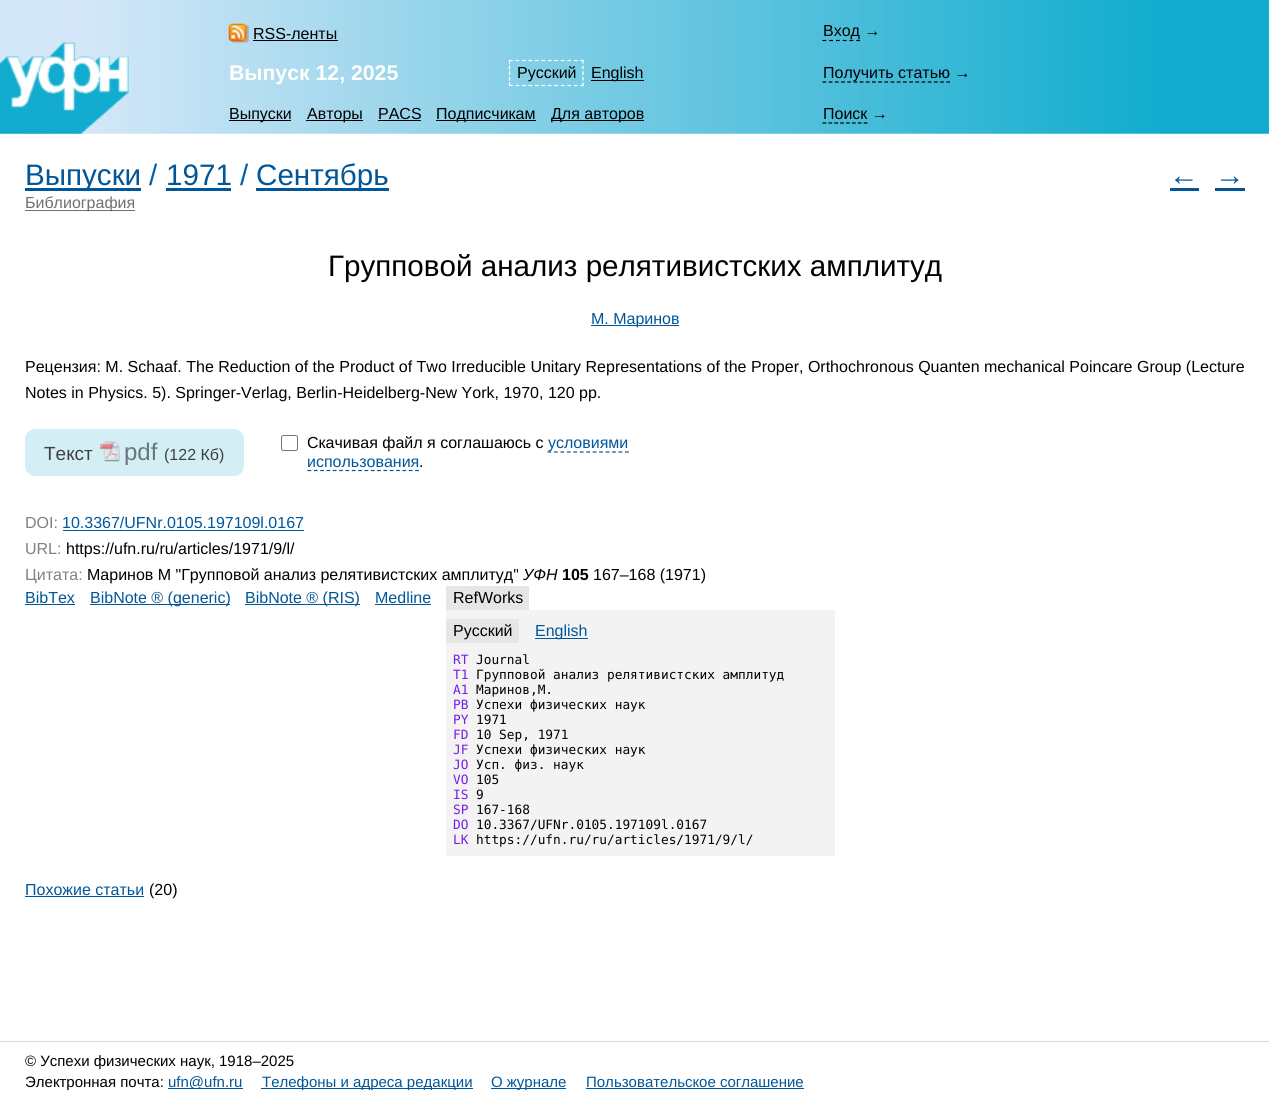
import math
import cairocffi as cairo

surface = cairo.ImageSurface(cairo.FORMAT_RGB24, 1269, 1100)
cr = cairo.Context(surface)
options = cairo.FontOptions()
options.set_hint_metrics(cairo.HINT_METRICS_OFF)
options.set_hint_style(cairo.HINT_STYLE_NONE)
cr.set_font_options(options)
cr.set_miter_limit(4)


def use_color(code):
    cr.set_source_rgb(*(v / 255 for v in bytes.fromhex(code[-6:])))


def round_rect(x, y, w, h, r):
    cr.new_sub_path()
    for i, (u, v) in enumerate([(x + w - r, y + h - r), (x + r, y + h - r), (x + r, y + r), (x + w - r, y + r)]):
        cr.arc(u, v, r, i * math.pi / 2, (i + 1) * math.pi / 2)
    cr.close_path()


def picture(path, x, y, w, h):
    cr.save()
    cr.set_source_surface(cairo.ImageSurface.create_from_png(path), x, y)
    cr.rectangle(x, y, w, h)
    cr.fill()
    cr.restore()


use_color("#ffffff")
cr.paint()
picture("img1.png", 0, 0, 1269, 134)
picture("img2.png", 228, 23, 21, 20)
cr.select_font_face("Liberation Sans")
cr.set_font_size(16)
use_color("#000000")
cr.move_to(253, 39)
cr.show_text("RSS-ленты")
cr.rectangle(253, 40, 85, 1)
cr.fill()
cr.new_path()
cr.move_to(822.5, 40.5)
cr.line_to(860, 40.5)
cr.set_line_width(1.2)
cr.set_dash([3.75, 3])
cr.stroke()
cr.move_to(823, 36)
cr.show_text("Вход →")
picture("img3.png", 0, 42, 129, 92)
cr.new_path()
cr.move_to(509, 60.5)
cr.line_to(584, 60.5)
use_color("#ffffff")
cr.set_dash([3.75, 2.73])
cr.stroke()
cr.new_path()
cr.move_to(583, 60)
cr.line_to(583, 86)
cr.set_dash([3.75, 1.88])
cr.stroke()
cr.new_path()
cr.move_to(509, 85.5)
cr.line_to(584, 85.5)
cr.set_dash([3.75, 2.73])
cr.stroke()
cr.new_path()
cr.move_to(509.5, 60)
cr.line_to(509.5, 86)
cr.set_dash([3.75, 1.88])
cr.stroke()
use_color("#000000")
cr.move_to(517, 78)
cr.show_text("Русский")
cr.rectangle(591, 80, 53, 1)
cr.fill()
cr.move_to(591, 78)
cr.show_text("English")
cr.select_font_face("Liberation Sans", cairo.FONT_SLANT_NORMAL, cairo.FONT_WEIGHT_BOLD)
cr.set_font_size(21.25)
use_color("#ffffff")
cr.move_to(229, 80)
cr.show_text("Выпуск 12, 2025")
cr.new_path()
cr.move_to(822.5, 82)
cr.line_to(950, 82)
use_color("#000000")
cr.set_dash([3.75, 2.44])
cr.stroke()
cr.select_font_face("Liberation Sans")
cr.set_font_size(16)
cr.move_to(823, 78)
cr.show_text("Получить статью →")
cr.rectangle(229, 120, 62, 1)
cr.fill()
cr.move_to(229, 119)
cr.show_text("Выпуски")
cr.rectangle(306, 120, 57, 1)
cr.fill()
cr.move_to(307, 119)
cr.show_text("Авторы")
cr.move_to(378, 119)
cr.show_text("PACS")
cr.rectangle(378, 120, 43, 1)
cr.fill()
cr.rectangle(436, 120, 100, 1)
cr.fill()
cr.move_to(436, 119)
cr.show_text("Подписчикам")
cr.rectangle(551, 120, 93, 1)
cr.fill()
cr.move_to(551, 119)
cr.show_text("Для авторов")
cr.move_to(823, 119)
cr.show_text("Поиск →")
cr.new_path()
cr.move_to(822.5, 123)
cr.line_to(867.5, 123)
cr.set_dash([3.75, 2.14])
cr.stroke()
use_color("#005698")
cr.rectangle(25, 188, 116, 3)
cr.fill()
cr.set_font_size(29.6)
cr.move_to(25, 185)
cr.show_text("Выпуски")
use_color("#0060a9")
cr.move_to(149, 185)
cr.show_text("/")
use_color("#005698")
cr.move_to(166, 185)
cr.show_text("1971")
cr.rectangle(166, 188, 65, 3)
cr.fill()
use_color("#0060a9")
cr.move_to(240, 185)
cr.show_text("/")
use_color("#005698")
cr.rectangle(256, 188, 133, 3)
cr.fill()
cr.move_to(256, 185)
cr.show_text("Сентябрь")
cr.move_to(1169, 185)
cr.show_text("←")
cr.rectangle(1170, 188, 29, 3)
cr.fill()
cr.move_to(1215, 185)
cr.show_text("→")
cr.rectangle(1215, 188, 30, 3)
cr.fill()
use_color("#707070")
cr.rectangle(25, 210, 110, 1)
cr.fill()
cr.set_font_size(16)
cr.move_to(25, 208)
cr.show_text("Библиография")
cr.set_font_size(29.6)
use_color("#000000")
cr.move_to(328, 276)
cr.show_text("Групповой анализ релятивистских амплитуд")
use_color("#005698")
cr.rectangle(591, 325, 88, 1)
cr.fill()
cr.set_font_size(16)
cr.move_to(591, 324)
cr.show_text("М. Маринов")
use_color("#000000")
cr.move_to(25, 372)
cr.show_text("Рецензия: М. Schaaf. The Reduction of the Product of Twо Irreducible Unitary Representations of the Proper, Orthochronous Quanten mесhаnical Poincare Group (Lecture")
cr.move_to(25, 398)
cr.show_text("Notes in Physics. 5). Springer-Verlag, Berlin-Heidelberg-New York, 1970, 120 pp.")
use_color("#d3eef4")
round_rect(25, 429, 219, 47, 10)
cr.fill()
cr.set_font_size(19)
use_color("#404040")
cr.move_to(44, 460)
cr.show_text("Текст")
picture("img4.png", 100, 441, 20, 21)
cr.set_font_size(24)
use_color("#6a777a")
cr.move_to(124, 460)
cr.show_text("pdf")
cr.set_font_size(16)
use_color("#404040")
cr.move_to(164, 460)
cr.show_text("(122 Кб)")
round_rect(281.5, 435.5, 16, 15, 2)
use_color("#767676")
cr.set_line_width(1)
cr.set_dash([])
cr.stroke()
use_color("#000000")
cr.move_to(307, 448)
cr.show_text("Скачивая файл я соглашаюсь с")
cr.new_path()
cr.move_to(547.5, 452)
cr.line_to(629, 452)
use_color("#005698")
cr.set_line_width(1.2)
cr.set_dash([3.75, 2.71])
cr.stroke()
cr.move_to(548, 448)
cr.show_text("условиями")
cr.move_to(307, 467)
cr.show_text("использования")
cr.new_path()
cr.move_to(307.5, 470.5)
cr.line_to(419, 470.5)
cr.set_dash([3.75, 2.58])
cr.stroke()
use_color("#000000")
cr.move_to(419, 467)
cr.show_text(".")
use_color("#808080")
cr.move_to(25, 528)
cr.show_text("DOI:")
use_color("#005698")
cr.move_to(62, 528)
cr.show_text("10.3367/UFNr.0105.197109l.0167")
cr.rectangle(63, 530, 241, 1)
cr.fill()
use_color("#808080")
cr.move_to(25, 554)
cr.show_text("URL:")
use_color("#000000")
cr.move_to(66, 554)
cr.show_text("https://ufn.ru/ru/articles/1971/9/l/")
use_color("#808080")
cr.move_to(25, 580)
cr.show_text("Цитата:")
use_color("#000000")
cr.move_to(87, 580)
cr.show_text("Маринов М \"Групповой анализ релятивистских амплитуд\"")
cr.select_font_face("Liberation Sans", cairo.FONT_SLANT_ITALIC)
cr.move_to(523, 580)
cr.show_text("УФН")
cr.select_font_face("Liberation Sans", cairo.FONT_SLANT_NORMAL, cairo.FONT_WEIGHT_BOLD)
cr.move_to(562, 580)
cr.show_text("105")
cr.select_font_face("Liberation Sans")
cr.move_to(593, 580)
cr.show_text("167–168 (1971)")
use_color("#005698")
cr.move_to(25, 603)
cr.show_text("BibTex")
cr.rectangle(25, 604, 50, 1)
cr.fill()
cr.rectangle(90, 604, 140, 1)
cr.fill()
cr.move_to(90, 603)
cr.show_text("BibNote ® (generic)")
cr.rectangle(245, 604, 115, 1)
cr.fill()
cr.move_to(245, 603)
cr.show_text("BibNote ® (RIS)")
cr.move_to(375, 603)
cr.show_text("Medline")
cr.rectangle(375, 604, 56, 1)
cr.fill()
use_color("#e6e6e6")
cr.rectangle(446, 586, 83, 24)
cr.fill()
use_color("#000000")
cr.move_to(453, 603)
cr.show_text("RefWorks")
use_color("#f3f3f3")
cr.rectangle(446, 610, 389, 246)
cr.fill()
use_color("#e6e6e6")
cr.rectangle(446, 619, 73, 24)
cr.fill()
use_color("#000000")
cr.move_to(453, 636)
cr.show_text("Русский")
use_color("#005698")
cr.rectangle(535, 638, 53, 1)
cr.fill()
cr.move_to(535, 636)
cr.show_text("English")
cr.select_font_face("DejaVu Sans Mono")
cr.set_font_size(12.8)
use_color("#771aea")
cr.move_to(453, 664)
cr.show_text("RT")
use_color("#000000")
cr.move_to(476, 664)
cr.show_text("Journal")
use_color("#771aea")
cr.move_to(453, 679)
cr.show_text("T1")
use_color("#000000")
cr.move_to(476, 679)
cr.show_text("Групповой анализ релятивистских амплитуд")
use_color("#771aea")
cr.move_to(453, 694)
cr.show_text("A1")
use_color("#000000")
cr.move_to(476, 694)
cr.show_text("Маринов,М.")
use_color("#771aea")
cr.move_to(453, 709)
cr.show_text("PB")
use_color("#000000")
cr.move_to(476, 709)
cr.show_text("Успехи физических наук")
use_color("#771aea")
cr.move_to(453, 724)
cr.show_text("PY")
use_color("#000000")
cr.move_to(476, 724)
cr.show_text("1971")
use_color("#771aea")
cr.move_to(453, 739)
cr.show_text("FD")
use_color("#000000")
cr.move_to(476, 739)
cr.show_text("10 Sep, 1971")
use_color("#771aea")
cr.move_to(453, 754)
cr.show_text("JF")
use_color("#000000")
cr.move_to(476, 754)
cr.show_text("Успехи физических наук")
use_color("#771aea")
cr.move_to(453, 769)
cr.show_text("JO")
use_color("#000000")
cr.move_to(476, 769)
cr.show_text("Усп. физ. наук")
use_color("#771aea")
cr.move_to(453, 784)
cr.show_text("VO")
use_color("#000000")
cr.move_to(476, 784)
cr.show_text("105")
use_color("#771aea")
cr.move_to(453, 799)
cr.show_text("IS")
use_color("#000000")
cr.move_to(476, 799)
cr.show_text("9")
use_color("#771aea")
cr.move_to(453, 814)
cr.show_text("SP")
use_color("#000000")
cr.move_to(476, 814)
cr.show_text("167-168")
use_color("#771aea")
cr.move_to(453, 829)
cr.show_text("DO")
use_color("#000000")
cr.move_to(476, 829)
cr.show_text("10.3367/UFNr.0105.197109l.0167")
use_color("#771aea")
cr.move_to(453, 844)
cr.show_text("LK")
use_color("#000000")
cr.move_to(476, 844)
cr.show_text("https://ufn.ru/ru/articles/1971/9/l/")
cr.select_font_face("Liberation Sans")
cr.set_font_size(16)
use_color("#005698")
cr.move_to(25, 895)
cr.show_text("Похожие статьи")
cr.rectangle(25, 896, 119, 1)
cr.fill()
use_color("#000000")
cr.move_to(149, 895)
cr.show_text("(20)")
use_color("#d9d9d9")
cr.rectangle(0, 1041, 1269, 1)
cr.fill()
cr.set_font_size(15)
use_color("#000000")
cr.move_to(25, 1066)
cr.show_text("© Успехи физических наук, 1918–2025")
cr.move_to(25, 1087)
cr.show_text("Электронная почта:")
use_color("#005698")
cr.rectangle(168, 1088, 75, 1)
cr.fill()
cr.move_to(168, 1087)
cr.show_text("ufn@ufn.ru")
cr.rectangle(261, 1088, 212, 1)
cr.fill()
cr.move_to(262, 1087)
cr.show_text("Телефоны и адреса редакции")
cr.rectangle(491, 1088, 75, 1)
cr.fill()
cr.move_to(491, 1087)
cr.show_text("О журнале")
cr.move_to(586, 1087)
cr.show_text("Пользовательское соглашение")
cr.rectangle(586, 1088, 218, 1)
cr.fill()
surface.write_to_png("result.png")
